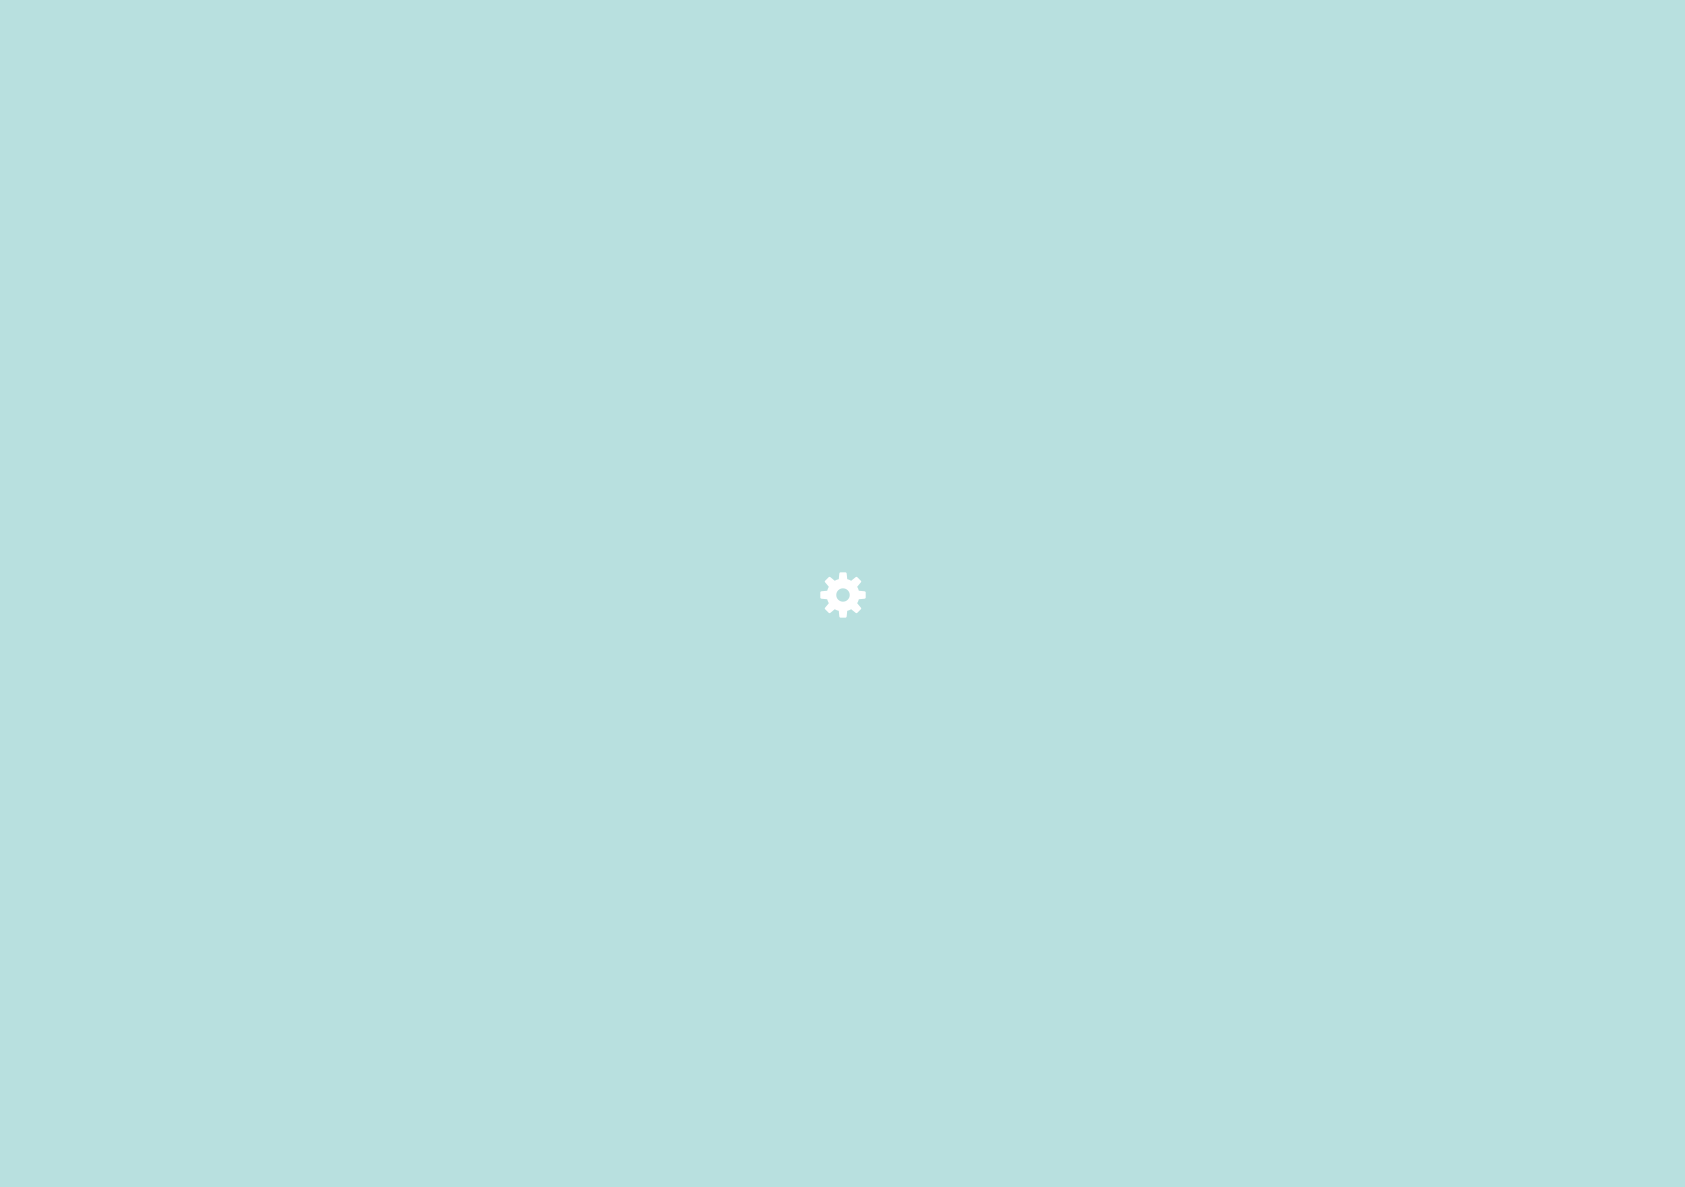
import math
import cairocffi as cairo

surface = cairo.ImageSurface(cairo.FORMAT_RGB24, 1685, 1187)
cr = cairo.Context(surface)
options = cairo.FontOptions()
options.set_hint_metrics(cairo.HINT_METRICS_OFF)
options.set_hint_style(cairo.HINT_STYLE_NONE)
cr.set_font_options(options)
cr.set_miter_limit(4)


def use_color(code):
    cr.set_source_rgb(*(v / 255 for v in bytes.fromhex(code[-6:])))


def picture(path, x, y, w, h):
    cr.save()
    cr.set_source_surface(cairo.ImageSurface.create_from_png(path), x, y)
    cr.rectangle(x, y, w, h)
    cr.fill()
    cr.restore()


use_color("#b8e0df")
cr.paint()
picture("img1.png", 820, 572, 46, 46)
surface.write_to_png("result.png")
